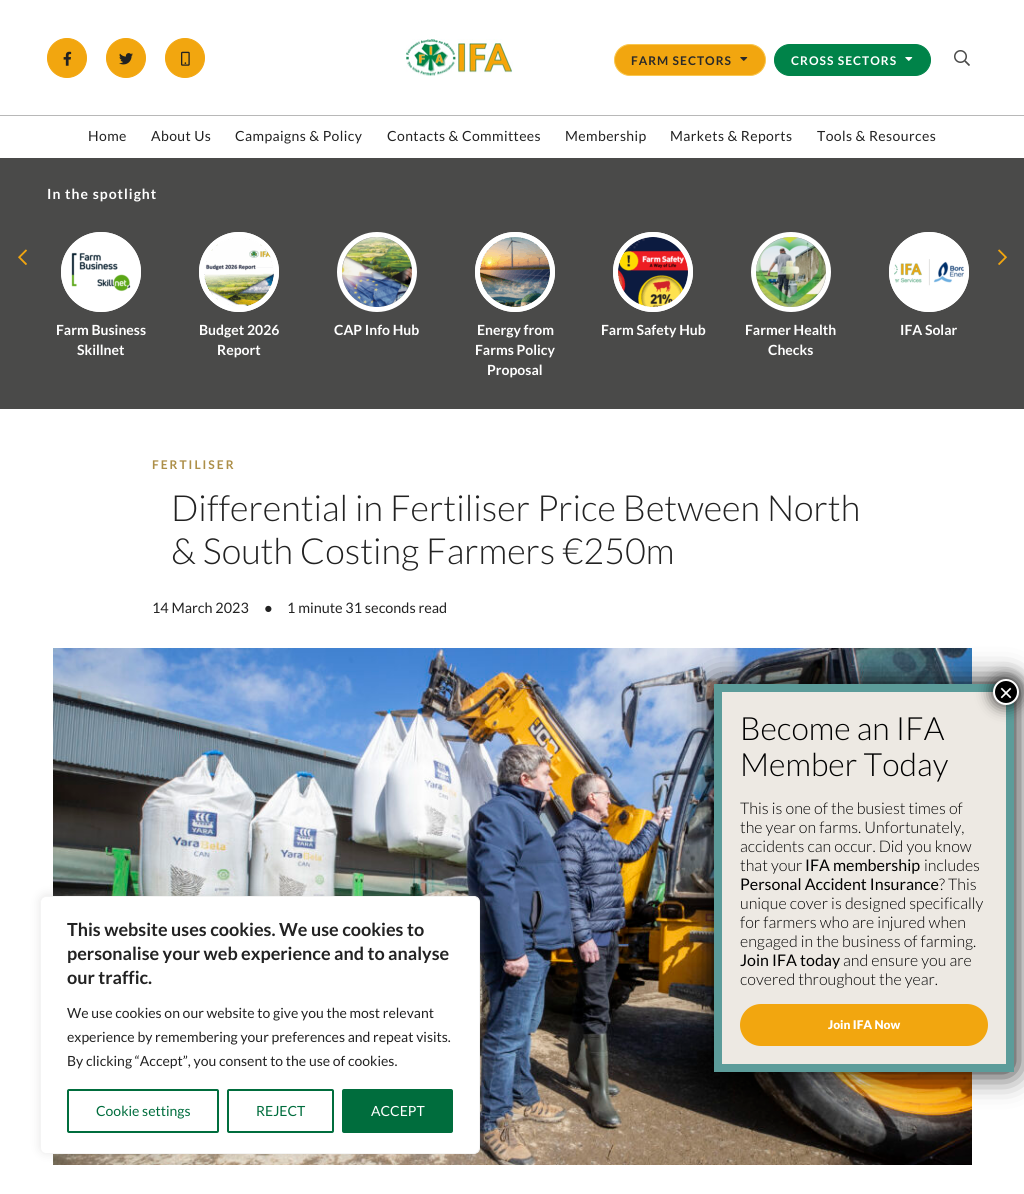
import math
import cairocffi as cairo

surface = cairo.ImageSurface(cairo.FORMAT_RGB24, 1024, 1194)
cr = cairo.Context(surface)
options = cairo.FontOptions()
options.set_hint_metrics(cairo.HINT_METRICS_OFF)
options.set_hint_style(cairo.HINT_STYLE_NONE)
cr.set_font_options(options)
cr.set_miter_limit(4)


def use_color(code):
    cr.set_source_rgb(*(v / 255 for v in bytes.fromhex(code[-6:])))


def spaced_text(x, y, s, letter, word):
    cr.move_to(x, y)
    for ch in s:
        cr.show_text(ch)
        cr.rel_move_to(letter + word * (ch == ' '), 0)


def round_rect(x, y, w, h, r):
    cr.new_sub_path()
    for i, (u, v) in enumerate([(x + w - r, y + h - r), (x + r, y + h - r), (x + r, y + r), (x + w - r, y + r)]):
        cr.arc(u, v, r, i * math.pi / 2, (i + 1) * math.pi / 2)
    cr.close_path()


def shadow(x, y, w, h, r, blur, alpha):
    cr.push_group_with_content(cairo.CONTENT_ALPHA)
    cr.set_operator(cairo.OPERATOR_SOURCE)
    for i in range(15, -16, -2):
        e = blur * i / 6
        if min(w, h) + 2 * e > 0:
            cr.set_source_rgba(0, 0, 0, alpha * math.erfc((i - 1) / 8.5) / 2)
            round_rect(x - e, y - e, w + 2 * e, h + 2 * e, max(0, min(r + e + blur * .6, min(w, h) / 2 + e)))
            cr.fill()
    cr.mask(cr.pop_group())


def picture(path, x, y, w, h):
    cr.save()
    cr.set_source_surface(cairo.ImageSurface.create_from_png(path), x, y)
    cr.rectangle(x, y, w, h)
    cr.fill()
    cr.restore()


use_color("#ffffff")
cr.paint()
use_color("#f2a60f")
cr.arc(67, 58, 19.5, 0, 2 * math.pi)
cr.fill_preserve()
cr.set_line_width(1)
cr.stroke()
picture("img1.png", 63, 51, 9, 15)
cr.arc(126, 58, 19.5, 0, 2 * math.pi)
cr.fill_preserve()
cr.stroke()
picture("img2.png", 119, 53, 14, 12)
cr.arc(185, 58, 19.5, 0, 2 * math.pi)
cr.fill_preserve()
cr.stroke()
picture("img3.png", 181, 51, 9, 15)
picture("img4.png", 406, 39, 107, 37)
round_rect(614.5, 44.5, 151, 31, 15.5)
cr.fill_preserve()
use_color("#f9c74f")
cr.stroke()
cr.select_font_face("Lato", cairo.FONT_SLANT_NORMAL, cairo.FONT_WEIGHT_BOLD)
cr.set_font_size(12)
use_color("#292929")
spaced_text(631, 65, "FARM SECTORS", 1, 0)
picture("img5.png", 740, 57, 8, 4)
use_color("#008349")
round_rect(774.5, 44.5, 156, 31, 15.5)
cr.fill_preserve()
cr.stroke()
use_color("#ffffff")
spaced_text(791, 65, "CROSS SECTORS", 1, 0)
picture("img6.png", 905, 57, 8, 4)
picture("img7.png", 954, 50, 16, 16)
use_color("#b8b8b8")
cr.rectangle(0, 115, 1024, 1)
cr.fill()
cr.select_font_face("Lato")
cr.set_font_size(14)
use_color("#222222")
spaced_text(88, 141, "Home", 0.4, 0)
spaced_text(151, 141, "About Us", 0.4, 0)
spaced_text(235, 141, "Campaigns & Policy", 0.4, 0)
spaced_text(387, 141, "Contacts & Committees", 0.4, 0)
spaced_text(565, 141, "Membership", 0.4, 0)
spaced_text(670, 141, "Markets & Reports", 0.4, 0)
spaced_text(817, 141, "Tools & Resources", 0.4, 0)
use_color("#4a4a49")
cr.rectangle(0, 158, 1024, 251)
cr.fill()
cr.select_font_face("Lato", cairo.FONT_SLANT_NORMAL, cairo.FONT_WEIGHT_BOLD)
use_color("#ffffff")
spaced_text(47, 199, "In the spotlight", 1, 0)
picture("img8.png", 18, 249, 9, 16)
picture("img9.png", 998, 249, 9, 16)
cr.arc(101, 272, 40, 0, 2 * math.pi)
cr.fill()
picture("img10.png", 71, 252, 60, 40)
cr.arc(101, 272, 37.5, 0, 2 * math.pi)
cr.set_line_width(5)
cr.stroke()
cr.move_to(56, 335)
cr.show_text("Farm Business")
cr.move_to(77, 355)
cr.show_text("Skillnet")
cr.new_path()
cr.arc(239, 272, 40, 0, 2 * math.pi)
cr.fill()
picture("img11.png", 204, 237, 70, 70)
cr.arc(239, 272, 37.5, 0, 2 * math.pi)
cr.stroke()
cr.move_to(199, 335)
cr.show_text("Budget 2026")
cr.move_to(217, 355)
cr.show_text("Report")
picture("img12.png", 342, 237, 70, 70)
cr.arc(377, 272, 37.5, 0, 2 * math.pi)
cr.stroke()
cr.move_to(334, 335)
cr.show_text("CAP Info Hub")
cr.new_path()
cr.arc(515, 272, 40, 0, 2 * math.pi)
cr.fill()
picture("img13.png", 480, 237, 70, 70)
cr.arc(515, 272, 37.5, 0, 2 * math.pi)
cr.stroke()
cr.move_to(477, 335)
cr.show_text("Energy from")
cr.move_to(475, 355)
cr.show_text("Farms Policy")
cr.move_to(487, 375)
cr.show_text("Proposal")
cr.new_path()
cr.arc(653, 272, 40, 0, 2 * math.pi)
cr.fill()
picture("img14.png", 618, 237, 70, 70)
cr.arc(653, 272, 37.5, 0, 2 * math.pi)
cr.stroke()
cr.move_to(601, 335)
cr.show_text("Farm Safety Hub")
picture("img15.png", 756, 237, 70, 70)
cr.arc(791, 272, 37.5, 0, 2 * math.pi)
cr.stroke()
cr.move_to(745, 335)
cr.show_text("Farmer Health")
cr.move_to(768, 355)
cr.show_text("Checks")
cr.new_path()
cr.arc(929, 272, 40, 0, 2 * math.pi)
cr.fill()
picture("img16.png", 894, 259, 70, 27)
cr.arc(929, 272, 37.5, 0, 2 * math.pi)
cr.stroke()
cr.move_to(900, 335)
cr.show_text("IFA Solar")
cr.set_font_size(12)
use_color("#ad8f48")
spaced_text(152, 469, "FERTILISER", 2, 0)
cr.select_font_face("Lato Light")
cr.set_font_size(36)
use_color("#222222")
cr.move_to(171, 521)
cr.show_text("Differential in Fertiliser Price Between North")
cr.move_to(171, 564)
cr.show_text("& South Costing Farmers €250m")
cr.select_font_face("Lato")
cr.set_font_size(14.4)
cr.move_to(152, 613)
cr.show_text("14 March 2023")
cr.select_font_face("Liberation Sans")
cr.move_to(264, 613)
cr.show_text("●")
cr.select_font_face("Lato")
cr.move_to(287, 613)
cr.show_text("1 minute 31 seconds read")
picture("img17.png", 53, 648, 919, 517)
use_color("#acabab")
shadow(40, 895, 440, 258, 6, 5, 0.3)
use_color("#ffffff")
round_rect(40.5, 896.5, 439, 257, 5.5)
cr.fill_preserve()
use_color("#f4f4f4")
cr.set_line_width(1)
cr.stroke()
cr.select_font_face("Lato", cairo.FONT_SLANT_NORMAL, cairo.FONT_WEIGHT_BOLD)
cr.set_font_size(18)
use_color("#222222")
cr.move_to(67, 936)
cr.show_text("This website uses cookies. We use cookies to")
cr.move_to(67, 960)
cr.show_text("personalise your web experience and to analyse")
cr.move_to(67, 984)
cr.show_text("our traffic.")
cr.select_font_face("Lato")
cr.set_font_size(14)
cr.move_to(67, 1018)
cr.show_text("We use cookies on our website to give you the most relevant")
cr.move_to(67, 1042)
cr.show_text("experience by remembering your preferences and repeat visits.")
cr.move_to(67, 1066)
cr.show_text("By clicking “Accept”, you consent to the use of cookies.")
round_rect(68, 1090, 150, 42, 1)
use_color("#006d3d")
cr.set_line_width(2)
cr.stroke()
cr.move_to(96, 1116)
cr.show_text("Cookie settings")
round_rect(228, 1090, 105, 42, 1)
cr.stroke()
cr.move_to(256, 1116)
cr.show_text("REJECT")
round_rect(343, 1090, 109, 42, 1)
cr.fill_preserve()
cr.stroke()
use_color("#ffffff")
cr.move_to(371, 1116)
cr.show_text("ACCEPT")
use_color("#020202")
shadow(714, 684, 300, 388, 3, 15, 1)
use_color("#ede9e3")
cr.rectangle(722, 692, 284, 372)
cr.fill()
cr.new_path()
cr.move_to(718, 688)
cr.line_to(1010, 688)
cr.line_to(1010, 1068)
cr.line_to(718, 1068)
cr.close_path()
use_color("#5c9c9a")
cr.set_line_width(8)
cr.stroke()
use_color("#020202")
shadow(992, 678, 28, 28, 14, 7.5, 0.75)
use_color("#000000")
cr.arc(1006, 692, 12, 0, 2 * math.pi)
cr.fill_preserve()
use_color("#ffffff")
cr.set_line_width(2)
cr.stroke()
cr.select_font_face("Liberation Sans")
cr.set_font_size(24)
cr.move_to(999, 701)
cr.show_text("×")
cr.select_font_face("Lato Light")
cr.set_font_size(32)
use_color("#000000")
cr.move_to(740, 740)
cr.show_text("Become an IFA")
cr.move_to(740, 776)
cr.show_text("Member Today")
cr.set_font_size(16)
cr.move_to(740, 814)
cr.show_text("This is one of the busiest times of")
cr.move_to(740, 833)
cr.show_text("the year on farms. Unfortunately,")
cr.move_to(740, 852)
cr.show_text("accidents can occur. Did you know")
cr.move_to(740, 871)
cr.show_text("that your")
cr.select_font_face("Lato")
cr.move_to(805, 871)
cr.show_text("IFA membership")
cr.select_font_face("Lato Light")
cr.move_to(924, 871)
cr.show_text("includes")
cr.select_font_face("Lato")
cr.move_to(740, 890)
cr.show_text("Personal Accident Insurance")
cr.select_font_face("Lato Light")
cr.move_to(939, 890)
cr.show_text("? This")
cr.move_to(740, 909)
cr.show_text("unique cover is designed specifically")
cr.move_to(740, 928)
cr.show_text("for farmers who are injured when")
cr.move_to(740, 947)
cr.show_text("engaged in the business of farming.")
cr.select_font_face("Lato")
cr.move_to(740, 966)
cr.show_text("Join IFA today")
cr.select_font_face("Lato Light")
cr.move_to(843, 966)
cr.show_text("and ensure you are")
cr.move_to(740, 985)
cr.show_text("covered throughout the year.")
use_color("#f2a60f")
round_rect(741, 1005, 246, 40, 20)
cr.fill_preserve()
cr.stroke()
cr.select_font_face("Lato Black")
cr.set_font_size(12)
use_color("#ffffff")
cr.move_to(828, 1029)
cr.show_text("Join IFA Now")
surface.write_to_png("result.png")
